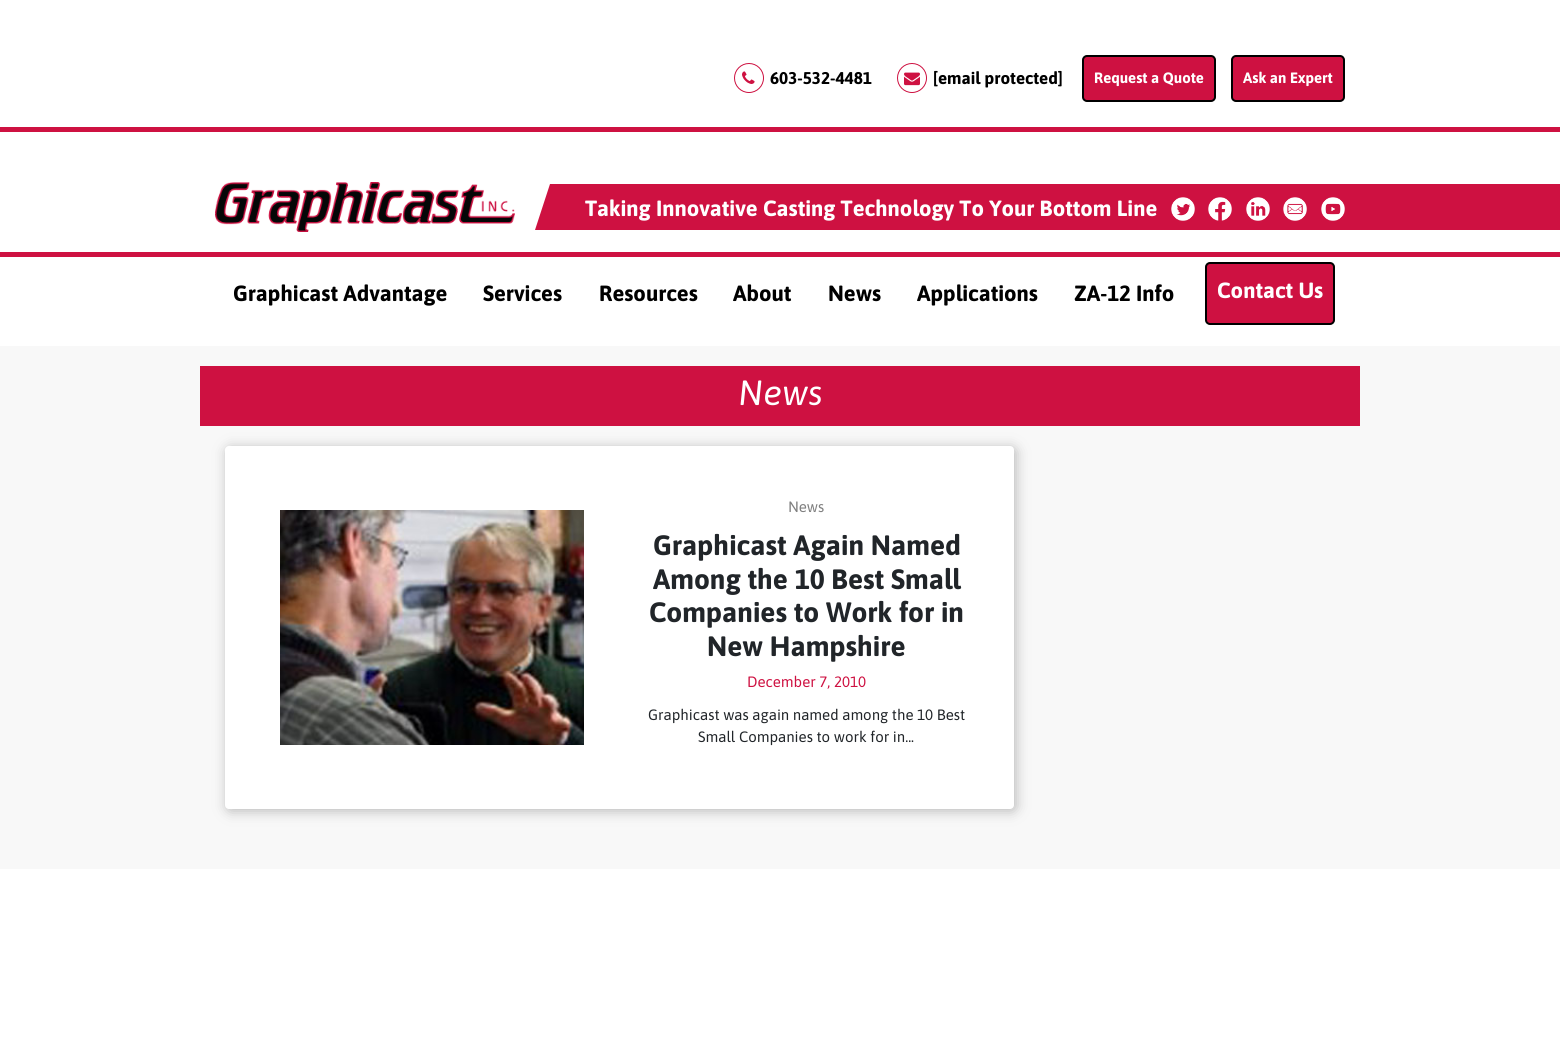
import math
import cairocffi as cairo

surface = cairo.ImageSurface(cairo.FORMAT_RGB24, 1560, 1051)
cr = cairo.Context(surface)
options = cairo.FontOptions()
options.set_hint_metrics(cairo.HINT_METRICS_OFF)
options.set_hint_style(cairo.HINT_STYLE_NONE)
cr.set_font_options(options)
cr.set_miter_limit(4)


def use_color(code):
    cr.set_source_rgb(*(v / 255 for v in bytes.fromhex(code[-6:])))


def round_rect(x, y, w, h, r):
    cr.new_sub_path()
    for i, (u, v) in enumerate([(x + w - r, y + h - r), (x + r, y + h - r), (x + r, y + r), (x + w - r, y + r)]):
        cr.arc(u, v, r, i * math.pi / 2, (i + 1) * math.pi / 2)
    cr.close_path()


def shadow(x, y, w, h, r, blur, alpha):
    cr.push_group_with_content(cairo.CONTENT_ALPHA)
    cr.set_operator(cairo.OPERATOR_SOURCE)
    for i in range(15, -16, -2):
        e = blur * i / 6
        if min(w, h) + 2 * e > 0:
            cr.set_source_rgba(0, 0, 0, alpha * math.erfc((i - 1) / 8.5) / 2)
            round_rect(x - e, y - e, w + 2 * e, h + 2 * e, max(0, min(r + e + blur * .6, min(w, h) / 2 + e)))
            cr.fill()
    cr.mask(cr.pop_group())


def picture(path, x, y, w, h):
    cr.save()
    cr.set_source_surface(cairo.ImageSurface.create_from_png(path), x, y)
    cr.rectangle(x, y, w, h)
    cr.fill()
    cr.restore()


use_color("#ffffff")
cr.paint()
use_color("#ce1141")
cr.rectangle(0, 127, 1560, 5)
cr.fill()
cr.arc(749, 78, 14.5, 0, 2 * math.pi)
cr.set_line_width(1)
cr.stroke()
picture("img1.png", 742, 71, 13, 13)
cr.select_font_face("Asap", cairo.FONT_SLANT_NORMAL, cairo.FONT_WEIGHT_BOLD)
cr.set_font_size(17)
use_color("#000000")
cr.move_to(770, 84)
cr.show_text("603-532-4481")
cr.new_path()
cr.arc(912, 78, 14.5, 0, 2 * math.pi)
use_color("#ce1141")
cr.stroke()
picture("img2.png", 904, 72, 16, 14)
use_color("#000000")
cr.move_to(933, 84)
cr.show_text("[email protected]")
use_color("#ce1141")
round_rect(1083, 56, 132, 45, 4)
cr.fill_preserve()
use_color("#000000")
cr.set_line_width(2)
cr.stroke()
cr.set_font_size(15)
use_color("#ffffff")
cr.move_to(1094, 83)
cr.show_text("Request a Quote")
use_color("#ce1141")
round_rect(1232, 56, 112, 45, 4)
cr.fill_preserve()
use_color("#000000")
cr.stroke()
use_color("#ffffff")
cr.move_to(1243, 83)
cr.show_text("Ask an Expert")
use_color("#ce1141")
cr.rectangle(0, 252, 1560, 5)
cr.fill()
picture("img3.png", 215, 182, 300, 50)
cr.new_path()
cr.move_to(550, 184)
cr.line_to(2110, 184)
cr.line_to(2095, 230)
cr.line_to(535, 230)
cr.close_path()
cr.fill()
cr.set_font_size(22)
use_color("#ffffff")
cr.move_to(585, 216)
cr.show_text("Taking Innovative Casting Technology To Your Bottom Line")
picture("img4.png", 1171, 197, 24, 24)
picture("img5.png", 1208, 197, 24, 24)
picture("img6.png", 1246, 197, 24, 24)
picture("img7.png", 1283, 197, 24, 24)
picture("img8.png", 1321, 197, 24, 24)
use_color("#000000")
cr.move_to(233, 301)
cr.show_text("Graphicast Advantage")
cr.move_to(483, 301)
cr.show_text("Services")
cr.move_to(599, 301)
cr.show_text("Resources")
cr.move_to(733, 301)
cr.show_text("About")
cr.move_to(828, 301)
cr.show_text("News")
cr.move_to(917, 301)
cr.show_text("Applications")
cr.move_to(1074, 301)
cr.show_text("ZA-12 Info")
use_color("#ce1141")
round_rect(1206, 263, 128, 61, 4)
cr.fill_preserve()
use_color("#000000")
cr.stroke()
use_color("#ffffff")
cr.move_to(1217, 298)
cr.show_text("Contact Us")
use_color("#f8f8f8")
cr.rectangle(0, 346, 1560, 523)
cr.fill()
use_color("#ce1141")
cr.rectangle(200, 366, 1160, 60)
cr.fill()
cr.select_font_face("Asap", cairo.FONT_SLANT_ITALIC)
cr.set_font_size(35)
use_color("#ffffff")
cr.move_to(738, 405)
cr.show_text("News")
use_color("#787878")
shadow(227, 448, 789, 363, 4, 6.5, 0.5)
use_color("#ffffff")
round_rect(225, 446, 789, 363, 4)
cr.fill()
picture("img9.png", 280, 510, 304, 235)
cr.select_font_face("Asap")
cr.set_font_size(15)
use_color("#808080")
cr.move_to(788, 512)
cr.show_text("News")
cr.select_font_face("Asap", cairo.FONT_SLANT_NORMAL, cairo.FONT_WEIGHT_BOLD)
cr.set_font_size(28)
use_color("#212529")
cr.move_to(653, 555)
cr.show_text("Graphicast Again Named")
cr.move_to(653, 589)
cr.show_text("Among the 10 Best Small")
cr.move_to(649, 622)
cr.show_text("Companies to Work for in")
cr.move_to(707, 656)
cr.show_text("New Hampshire")
cr.select_font_face("Asap")
cr.set_font_size(15)
use_color("#ce1141")
cr.move_to(747, 687)
cr.show_text("December 7, 2010")
use_color("#212529")
cr.move_to(648, 720)
cr.show_text("Graphicast was again named among the 10 Best")
cr.move_to(698, 742)
cr.show_text("Small Companies to work for in...")
surface.write_to_png("result.png")
